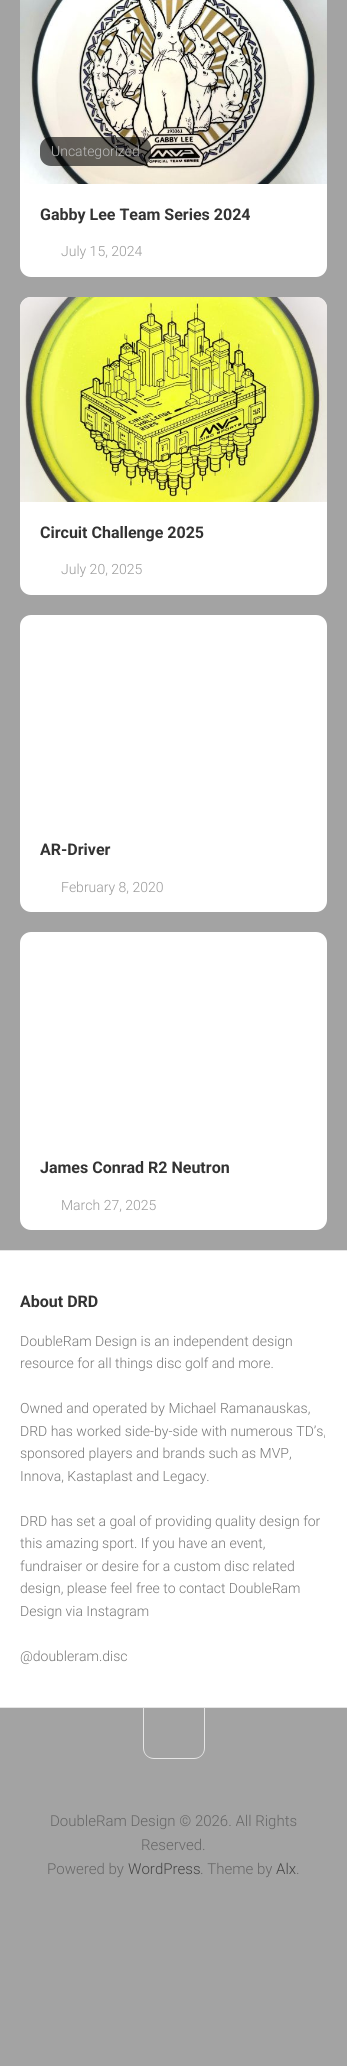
import math
import cairocffi as cairo

surface = cairo.ImageSurface(cairo.FORMAT_RGB24, 347, 2066)
cr = cairo.Context(surface)
options = cairo.FontOptions()
options.set_hint_metrics(cairo.HINT_METRICS_OFF)
options.set_hint_style(cairo.HINT_STYLE_NONE)
cr.set_font_options(options)
cr.set_miter_limit(4)


def use_color(code):
    cr.set_source_rgb(*(v / 255 for v in bytes.fromhex(code[-6:])))


def round_rect(x, y, w, h, r):
    cr.new_sub_path()
    for i, (u, v) in enumerate([(x + w - r, y + h - r), (x + r, y + h - r), (x + r, y + r), (x + w - r, y + r)]):
        cr.arc(u, v, r, i * math.pi / 2, (i + 1) * math.pi / 2)
    cr.close_path()


def picture(path, x, y, w, h):
    cr.save()
    cr.set_source_surface(cairo.ImageSurface.create_from_png(path), x, y)
    cr.rectangle(x, y, w, h)
    cr.fill()
    cr.restore()


use_color("#a3a3a3")
cr.paint()
use_color("#ffffff")
round_rect(20, -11, 307, 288, 11)
cr.fill()
picture("img1.png", 20, 0, 307, 184)
cr.set_source_rgba(0, 0, 0, 0.6)
round_rect(40, 137, 111, 29, 11)
cr.fill()
cr.select_font_face("Roboto Light")
cr.set_font_size(14)
use_color("#bbbbbb")
cr.move_to(51, 156)
cr.show_text("Uncategorized")
cr.select_font_face("Roboto", cairo.FONT_SLANT_NORMAL, cairo.FONT_WEIGHT_BOLD)
cr.set_font_size(16)
use_color("#333333")
cr.move_to(40, 220)
cr.show_text("Gabby Lee Team Series 2024")
cr.select_font_face("Roboto Light")
cr.set_font_size(14)
use_color("#999999")
cr.move_to(61, 256)
cr.show_text("July 15, 2024")
use_color("#ffffff")
round_rect(20, 297, 307, 298, 11)
cr.fill()
picture("img2.png", 20, 297, 307, 205)
cr.select_font_face("Roboto", cairo.FONT_SLANT_NORMAL, cairo.FONT_WEIGHT_BOLD)
cr.set_font_size(16)
use_color("#333333")
cr.move_to(40, 538)
cr.show_text("Circuit Challenge 2025")
cr.select_font_face("Roboto Light")
cr.set_font_size(14)
use_color("#999999")
cr.move_to(61, 574)
cr.show_text("July 20, 2025")
use_color("#ffffff")
round_rect(20, 615, 307, 297, 11)
cr.fill()
cr.select_font_face("Roboto", cairo.FONT_SLANT_NORMAL, cairo.FONT_WEIGHT_BOLD)
cr.set_font_size(16)
use_color("#333333")
cr.move_to(40, 855)
cr.show_text("AR-Driver")
cr.select_font_face("Roboto Light")
cr.set_font_size(14)
use_color("#999999")
cr.move_to(61, 892)
cr.show_text("February 8, 2020")
use_color("#ffffff")
round_rect(20, 932, 307, 298, 11)
cr.fill()
cr.select_font_face("Roboto", cairo.FONT_SLANT_NORMAL, cairo.FONT_WEIGHT_BOLD)
cr.set_font_size(16)
use_color("#333333")
cr.move_to(40, 1173)
cr.show_text("James Conrad R2 Neutron")
cr.select_font_face("Roboto Light")
cr.set_font_size(14)
use_color("#999999")
cr.move_to(61, 1210)
cr.show_text("March 27, 2025")
use_color("#ffffff")
cr.rectangle(0, 1251, 347, 456)
cr.fill()
use_color("#e5e5e5")
cr.rectangle(0, 1250, 347, 1)
cr.fill()
cr.select_font_face("Roboto", cairo.FONT_SLANT_NORMAL, cairo.FONT_WEIGHT_BOLD)
cr.set_font_size(16)
use_color("#333333")
cr.move_to(20, 1307)
cr.show_text("About DRD")
cr.select_font_face("Roboto Light")
cr.set_font_size(14)
use_color("#777777")
cr.move_to(20, 1346)
cr.show_text("DoubleRam Design is an independent design")
cr.move_to(20, 1368)
cr.show_text("resource for all things disc golf and more.")
cr.move_to(20, 1413)
cr.show_text("Owned and operated by Michael Ramanauskas,")
cr.move_to(20, 1436)
cr.show_text("DRD has worked side-by-side with numerous TD’s,")
cr.move_to(20, 1458)
cr.show_text("sponsored players and brands such as MVP,")
cr.move_to(20, 1481)
cr.show_text("Innova, Kastaplast and Legacy.")
cr.move_to(20, 1526)
cr.show_text("DRD has set a goal of providing quality design for")
cr.move_to(20, 1548)
cr.show_text("this amazing sport. If you have an event,")
cr.move_to(20, 1571)
cr.show_text("fundraiser or desire for a custom disc related")
cr.move_to(20, 1593)
cr.show_text("design, please feel free to contact DoubleRam")
cr.move_to(20, 1616)
cr.show_text("Design via Instagram")
cr.move_to(20, 1661)
cr.show_text("@doubleram.disc")
use_color("#e5e5e5")
cr.rectangle(0, 1707, 347, 1)
cr.fill()
cr.set_fill_rule(cairo.FILL_RULE_EVEN_ODD)
cr.new_path()
cr.move_to(143, 1708)
cr.line_to(205, 1708)
cr.line_to(205, 1748)
cr.curve_to(205, 1754, 200, 1759, 194, 1759)
cr.line_to(154, 1759)
cr.curve_to(148, 1759, 143, 1754, 143, 1748)
cr.close_path()
cr.move_to(144, 1708)
cr.line_to(204, 1708)
cr.line_to(204, 1748)
cr.curve_to(204, 1754, 200, 1758, 194, 1758)
cr.line_to(154, 1758)
cr.curve_to(148, 1758, 144, 1754, 144, 1748)
cr.close_path()
cr.fill()
cr.set_font_size(15)
use_color("#666666")
cr.move_to(50, 1826)
cr.show_text("DoubleRam Design © 2026. All Rights")
cr.move_to(141, 1850)
cr.show_text("Reserved.")
cr.move_to(47, 1874)
cr.show_text("Powered by")
use_color("#444444")
cr.move_to(128, 1874)
cr.show_text("WordPress")
use_color("#666666")
cr.move_to(200, 1874)
cr.show_text(". Theme by")
use_color("#444444")
cr.move_to(276, 1874)
cr.show_text("Alx")
use_color("#666666")
cr.move_to(296, 1874)
cr.show_text(".")
surface.write_to_png("result.png")
